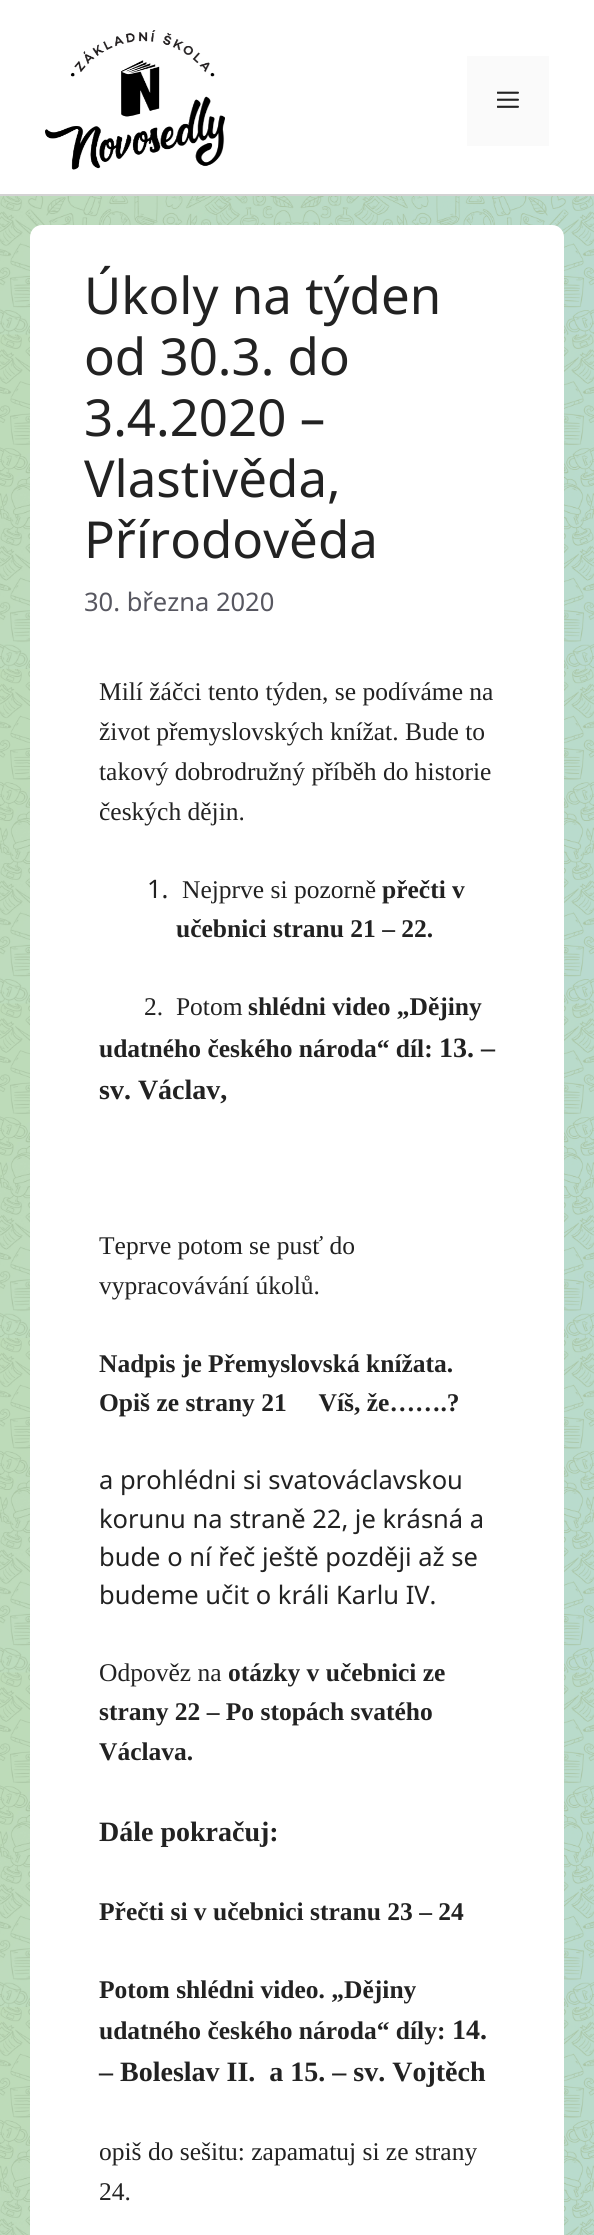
import math
import cairocffi as cairo

surface = cairo.ImageSurface(cairo.FORMAT_RGB24, 594, 2235)
cr = cairo.Context(surface)
options = cairo.FontOptions()
options.set_hint_metrics(cairo.HINT_METRICS_OFF)
options.set_hint_style(cairo.HINT_STYLE_NONE)
cr.set_font_options(options)
cr.set_miter_limit(4)


def use_color(code):
    cr.set_source_rgb(*(v / 255 for v in bytes.fromhex(code[-6:])))


def round_rect(x, y, w, h, r):
    cr.new_sub_path()
    for i, (u, v) in enumerate([(x + w - r, y + h - r), (x + r, y + h - r), (x + r, y + r), (x + w - r, y + r)]):
        cr.arc(u, v, r, i * math.pi / 2, (i + 1) * math.pi / 2)
    cr.close_path()


def picture(path, x, y, w, h):
    cr.save()
    cr.set_source_surface(cairo.ImageSurface.create_from_png(path), x, y)
    cr.rectangle(x, y, w, h)
    cr.fill()
    cr.restore()


use_color("#ffffff")
cr.paint()
picture("img1.png", 0, 196, 594, 2039)
use_color("#d3d3d3")
cr.rectangle(0, 194, 594, 2)
cr.fill()
picture("img2.png", 45, 30, 180, 140)
use_color("#fafafa")
cr.rectangle(467, 56, 82, 90)
cr.fill()
picture("img3.png", 497, 91, 22, 17)
use_color("#ffffff")
round_rect(31, 226, 532, 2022, 11)
cr.fill_preserve()
cr.stroke()
cr.select_font_face("Noto Sans")
cr.set_font_size(51)
use_color("#222222")
cr.move_to(84, 314)
cr.show_text("Úkoly na týden")
cr.move_to(84, 375)
cr.show_text("od 30.3. do")
cr.move_to(84, 436)
cr.show_text("3.4.2020 –")
cr.move_to(84, 497)
cr.show_text("Vlastivěda,")
cr.move_to(84, 558)
cr.show_text("Přírodověda")
cr.set_font_size(25.5)
use_color("#575760")
cr.move_to(84, 611)
cr.show_text("30. března 2020")
cr.select_font_face("Liberation Serif")
use_color("#222222")
cr.move_to(99, 700)
cr.show_text("Milí žáčci tento týden, se podíváme na")
cr.move_to(99, 740)
cr.show_text("život přemyslovských knížat. Bude to")
cr.move_to(99, 780)
cr.show_text("takový dobrodružný příběh do historie")
cr.move_to(99, 820)
cr.show_text("českých dějin.")
cr.select_font_face("Noto Sans")
cr.move_to(147, 898)
cr.show_text("1.")
cr.select_font_face("Liberation Serif")
cr.move_to(182, 898)
cr.show_text("Nejprve si pozorně")
cr.select_font_face("Liberation Serif", cairo.FONT_SLANT_NORMAL, cairo.FONT_WEIGHT_BOLD)
cr.move_to(382, 898)
cr.show_text("přečti v")
cr.move_to(176, 937)
cr.show_text("učebnici stranu 21 – 22.")
cr.select_font_face("Liberation Serif")
cr.move_to(144, 1015)
cr.show_text("2.  Potom")
cr.select_font_face("Liberation Serif", cairo.FONT_SLANT_NORMAL, cairo.FONT_WEIGHT_BOLD)
cr.move_to(248, 1015)
cr.show_text("shlédni video „Dějiny")
cr.move_to(99, 1057)
cr.show_text("udatného českého národa“ díl:")
cr.set_font_size(28)
cr.move_to(439, 1057)
cr.show_text("13. –")
cr.move_to(99, 1099)
cr.show_text("sv. Václav,")
cr.select_font_face("Liberation Serif")
cr.set_font_size(25.5)
cr.move_to(99, 1254)
cr.show_text("Teprve potom se pusť do")
cr.move_to(99, 1294)
cr.show_text("vypracovávání úkolů.")
cr.select_font_face("Liberation Serif", cairo.FONT_SLANT_NORMAL, cairo.FONT_WEIGHT_BOLD)
cr.move_to(99, 1372)
cr.show_text("Nadpis je Přemyslovská knížata.")
cr.move_to(99, 1411)
cr.show_text("Opiš ze strany 21     Víš, že…….?")
cr.select_font_face("Noto Sans")
cr.move_to(99, 1489)
cr.show_text("a prohlédni si svatováclavskou")
cr.move_to(99, 1528)
cr.show_text("korunu na straně 22, je krásná a")
cr.move_to(99, 1566)
cr.show_text("bude o ní řeč ještě později až se")
cr.move_to(99, 1604)
cr.show_text("budeme učit o králi Karlu IV.")
cr.select_font_face("Liberation Serif")
cr.move_to(99, 1681)
cr.show_text("Odpověz na")
cr.select_font_face("Liberation Serif", cairo.FONT_SLANT_NORMAL, cairo.FONT_WEIGHT_BOLD)
cr.move_to(228, 1681)
cr.show_text("otázky v učebnici ze")
cr.move_to(99, 1720)
cr.show_text("strany 22 – Po stopách svatého")
cr.move_to(99, 1760)
cr.show_text("Václava.")
cr.set_font_size(28)
cr.move_to(99, 1841)
cr.show_text("Dále pokračuj:")
cr.set_font_size(25.5)
cr.move_to(99, 1920)
cr.show_text("Přečti si v učebnici stranu 23 – 24")
cr.move_to(99, 1998)
cr.show_text("Potom shlédni video. „Dějiny")
cr.move_to(99, 2039)
cr.show_text("udatného českého národa“ díly:")
cr.set_font_size(28)
cr.move_to(452, 2039)
cr.show_text("14.")
cr.move_to(99, 2081)
cr.show_text("– Boleslav II.  a 15. – sv. Vojtěch")
cr.select_font_face("Liberation Serif")
cr.set_font_size(25.5)
cr.move_to(99, 2160)
cr.show_text("opiš do sešitu: zapamatuj si ze strany")
cr.move_to(99, 2200)
cr.show_text("24.")
surface.write_to_png("result.png")
